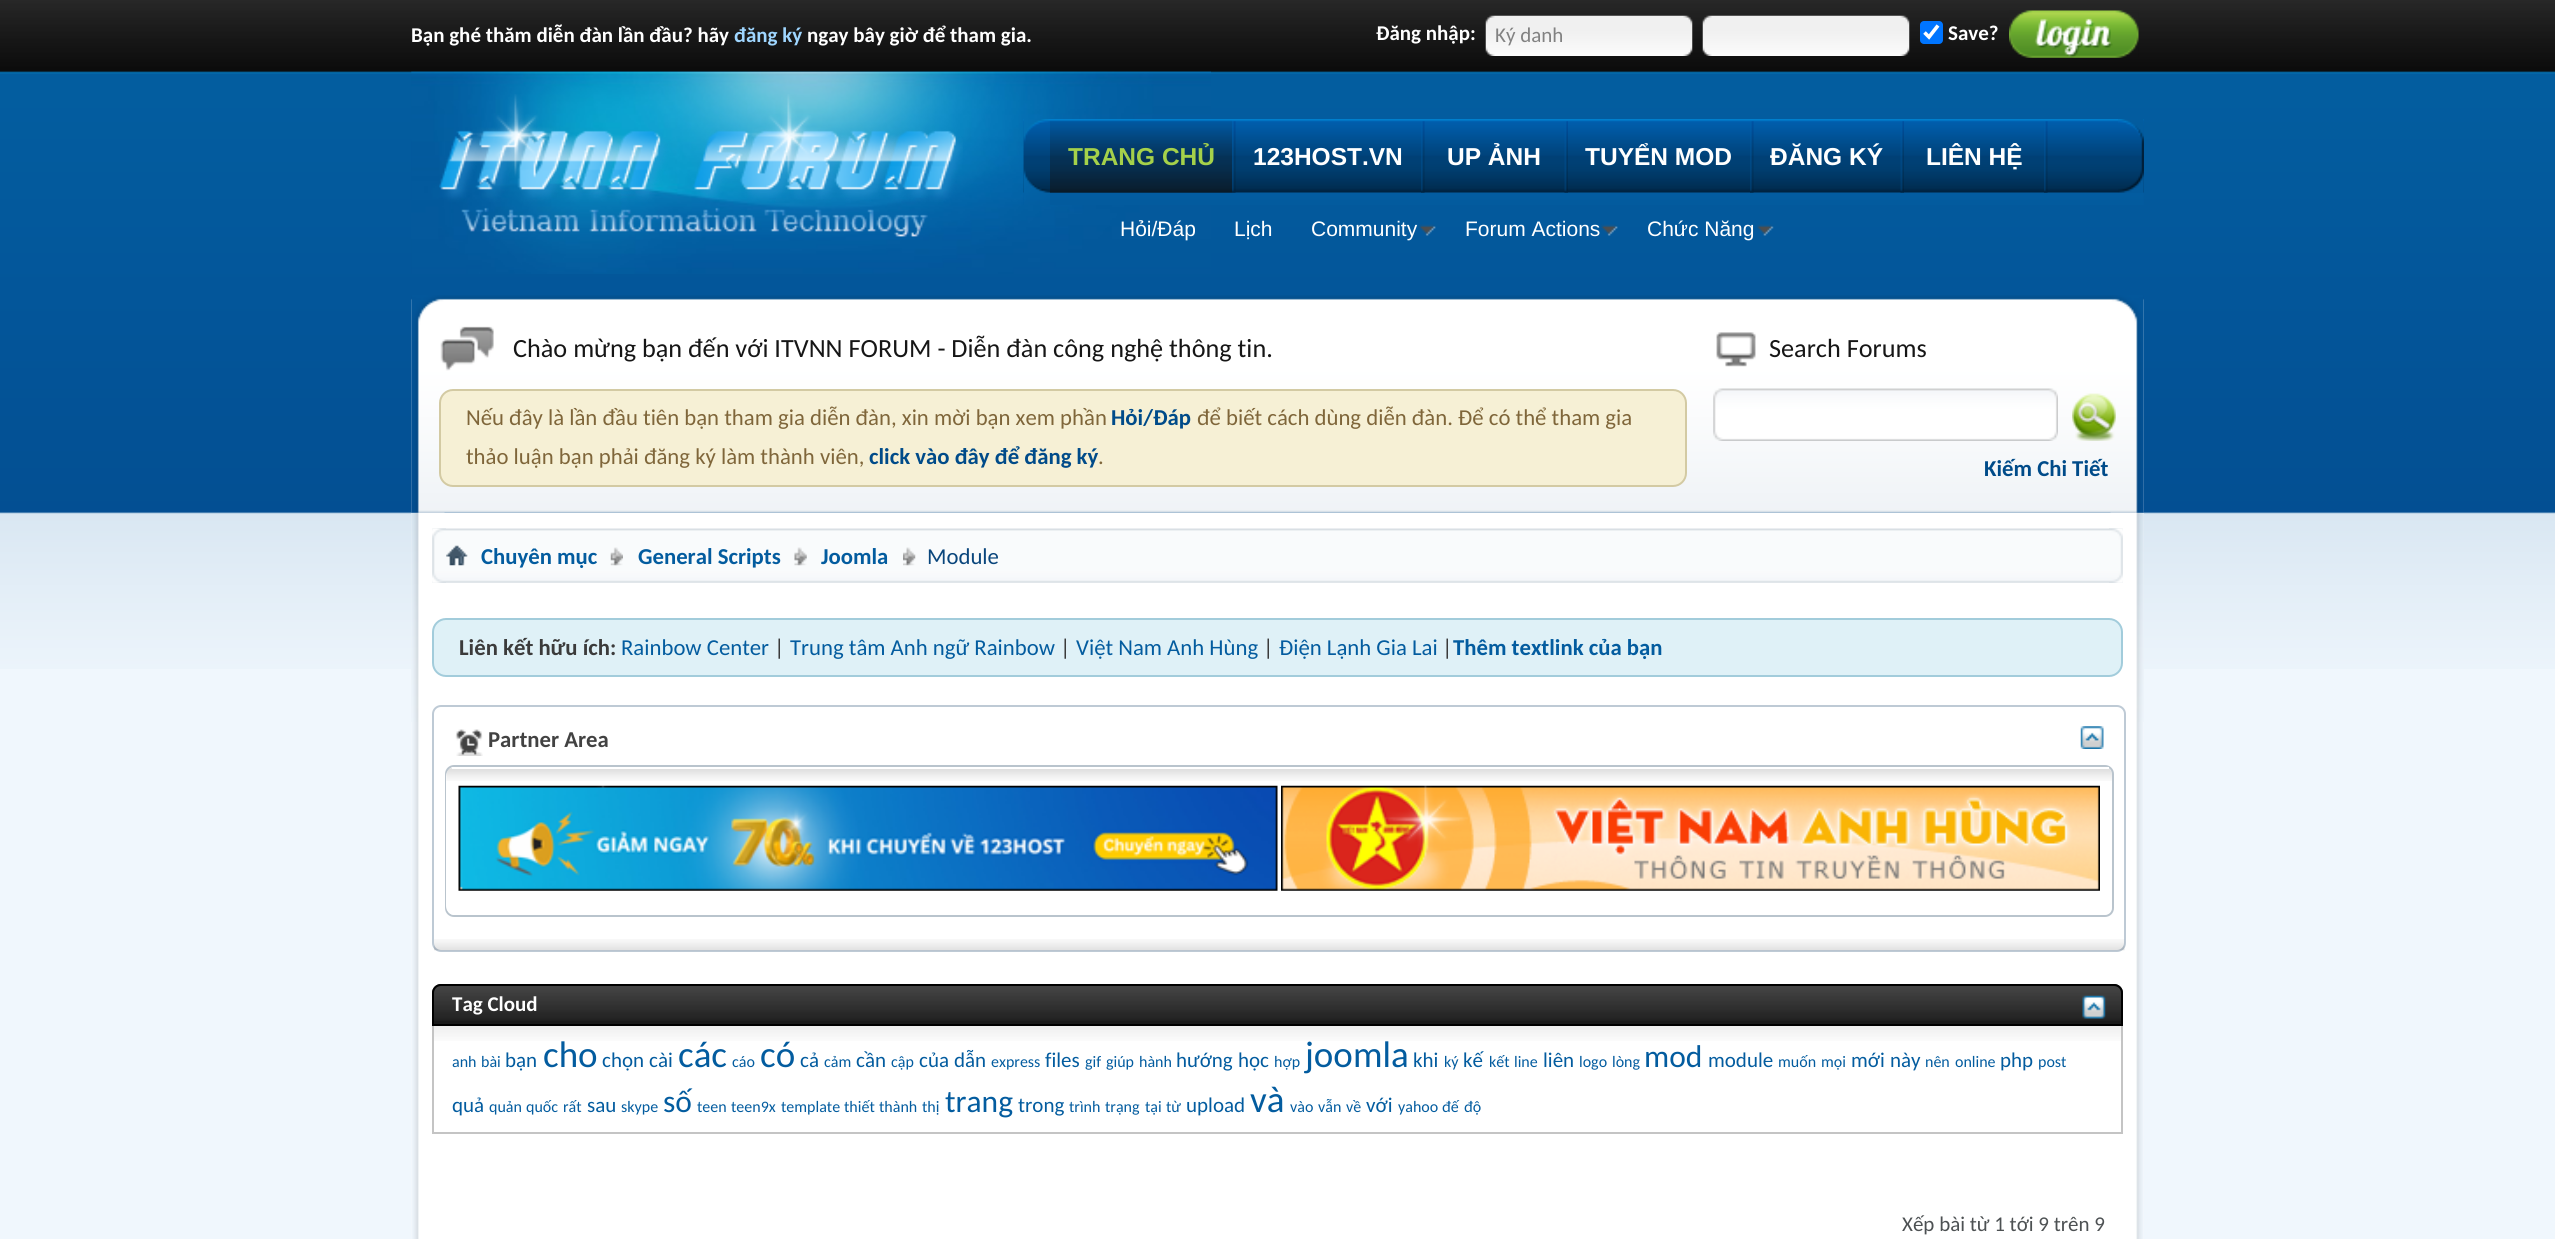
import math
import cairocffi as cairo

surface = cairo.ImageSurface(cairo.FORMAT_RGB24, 2555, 1239)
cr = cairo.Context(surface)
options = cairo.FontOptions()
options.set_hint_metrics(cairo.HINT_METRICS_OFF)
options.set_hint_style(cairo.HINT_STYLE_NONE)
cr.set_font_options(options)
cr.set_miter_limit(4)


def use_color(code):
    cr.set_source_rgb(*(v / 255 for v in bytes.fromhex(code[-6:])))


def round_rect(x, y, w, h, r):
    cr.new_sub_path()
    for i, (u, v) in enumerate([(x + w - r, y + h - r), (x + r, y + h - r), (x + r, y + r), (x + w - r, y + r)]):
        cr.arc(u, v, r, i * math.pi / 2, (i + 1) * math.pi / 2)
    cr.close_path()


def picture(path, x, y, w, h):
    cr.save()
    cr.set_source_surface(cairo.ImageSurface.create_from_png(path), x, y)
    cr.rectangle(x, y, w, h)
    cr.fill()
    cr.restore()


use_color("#f0f7fd")
cr.paint()
picture("img1.png", 0, 0, 2555, 669)
cr.select_font_face("Carlito", cairo.FONT_SLANT_NORMAL, cairo.FONT_WEIGHT_BOLD)
cr.set_font_size(21)
use_color("#ffffff")
cr.move_to(411, 42)
cr.show_text("Bạn ghé thăm diễn đàn lần đầu? hãy")
use_color("#9fd6ff")
cr.move_to(734, 42)
cr.show_text("đăng ký")
use_color("#ffffff")
cr.move_to(807, 42)
cr.show_text("ngay bây giờ để tham gia.")
cr.move_to(1376, 40)
cr.show_text("Đăng nhập:")
picture("img2.png", 1485, 15, 208, 41)
cr.select_font_face("Carlito")
use_color("#828282")
cr.move_to(1495, 42)
cr.show_text("Ký danh")
picture("img2.png", 1702, 15, 208, 41)
use_color("#0075ff")
round_rect(1920, 21, 23, 23, 4)
cr.fill()
cr.new_path()
cr.move_to(1924.5, 32.5)
cr.line_to(1929, 37)
cr.line_to(1938, 25.5)
use_color("#ffffff")
cr.set_line_width(3.6)
cr.stroke()
cr.select_font_face("Carlito", cairo.FONT_SLANT_NORMAL, cairo.FONT_WEIGHT_BOLD)
cr.move_to(1948, 40)
cr.show_text("Save?")
picture("img3.png", 2009, 10, 130, 48)
picture("img4.png", 411, 71, 800, 203)
picture("img5.png", 439, 94, 524, 143)
picture("img6.png", 1023, 119, 1121, 86)
picture("img7.png", 1023, 119, 27, 86)
picture("img8.png", 2118, 119, 26, 74)
picture("img9.png", 1232, 121, 4, 72)
picture("img10.png", 1050, 119, 182, 74)
cr.select_font_face("Liberation Sans", cairo.FONT_SLANT_NORMAL, cairo.FONT_WEIGHT_BOLD)
cr.set_font_size(24.5)
use_color("#a5d14a")
cr.move_to(1068, 165)
cr.show_text("TRANG CHỦ")
picture("img9.png", 1421, 121, 4, 72)
use_color("#ffffff")
cr.move_to(1253, 165)
cr.show_text("123HOST.VN")
picture("img11.png", 1564, 121, 4, 72)
cr.move_to(1447, 165)
cr.show_text("UP ẢNH")
picture("img9.png", 1750, 121, 4, 72)
cr.move_to(1585, 165)
cr.show_text("TUYỂN MOD")
picture("img11.png", 1900, 121, 4, 72)
cr.move_to(1770, 165)
cr.show_text("ĐĂNG KÝ")
picture("img9.png", 2044, 121, 4, 72)
cr.move_to(1926, 165)
cr.show_text("LIÊN HỆ")
cr.select_font_face("Liberation Sans")
cr.set_font_size(21)
cr.move_to(1120, 236)
cr.show_text("Hỏi/Ðáp")
cr.move_to(1234, 236)
cr.show_text("Lịch")
cr.move_to(1311, 236)
cr.show_text("Community")
picture("img12.png", 1419, 224, 17, 12)
cr.move_to(1465, 236)
cr.show_text("Forum Actions")
picture("img12.png", 1601, 224, 17, 12)
cr.move_to(1647, 236)
cr.show_text("Chức Năng")
picture("img13.png", 1757, 224, 17, 12)
cr.rectangle(411, 513, 1733, 726)
cr.fill()
picture("img21.png", 411, 512, 9, 727)
picture("img22.png", 2135, 512, 9, 727)
picture("img23.png", 411, 512, 9, 210)
picture("img24.png", 2135, 512, 9, 210)
picture("img14.png", 411, 295, 1733, 218)
picture("img15.png", 411, 295, 34, 218)
picture("img16.png", 2110, 295, 34, 218)
picture("img17.png", 440, 326, 54, 45)
cr.select_font_face("Carlito")
cr.set_font_size(26.25)
use_color("#161616")
cr.move_to(513, 357)
cr.show_text("Chào mừng bạn đến với ITVNN FORUM - Diễn đàn công nghệ thông tin.")
use_color("#f6f0d5")
round_rect(440, 390, 1246, 96, 13)
cr.fill_preserve()
use_color("#d3caa3")
cr.set_line_width(2)
cr.stroke()
cr.set_font_size(22.75)
use_color("#7f663a")
cr.move_to(466, 425)
cr.show_text("Nếu đây là lần đầu tiên bạn tham gia diễn đàn, xin mời bạn xem phần")
cr.select_font_face("Carlito", cairo.FONT_SLANT_NORMAL, cairo.FONT_WEIGHT_BOLD)
use_color("#004b89")
cr.move_to(1111, 425)
cr.show_text("Hỏi/Ðáp")
cr.select_font_face("Carlito")
use_color("#7f663a")
cr.move_to(1197, 425)
cr.show_text("để biết cách dùng diễn đàn. Để có thể tham gia")
cr.move_to(466, 464)
cr.show_text("thảo luận bạn phải đăng ký làm thành viên,")
cr.select_font_face("Carlito", cairo.FONT_SLANT_NORMAL, cairo.FONT_WEIGHT_BOLD)
use_color("#004b89")
cr.move_to(869, 464)
cr.show_text("click vào đây để đăng ký")
cr.select_font_face("Carlito")
use_color("#7f663a")
cr.move_to(1098, 464)
cr.show_text(".")
picture("img18.png", 1716, 332, 40, 35)
cr.set_font_size(26.25)
use_color("#161616")
cr.move_to(1769, 357)
cr.show_text("Search Forums")
picture("img19.png", 1713, 388, 345, 53)
picture("img20.png", 2072, 393, 44, 48)
cr.select_font_face("Carlito", cairo.FONT_SLANT_NORMAL, cairo.FONT_WEIGHT_BOLD)
cr.set_font_size(22.75)
use_color("#004b89")
cr.move_to(1984, 476)
cr.show_text("Kiếm Chi Tiết")
picture("img25.png", 432, 528, 1691, 55)
picture("img26.png", 432, 528, 14, 55)
picture("img27.png", 2109, 528, 14, 55)
picture("img28.png", 446, 545, 22, 21)
picture("img29.png", 610, 547, 13, 19)
use_color("#035c9f")
cr.move_to(481, 564)
cr.show_text("Chuyên mục")
picture("img30.png", 794, 547, 13, 19)
cr.move_to(638, 564)
cr.show_text("General Scripts")
picture("img31.png", 903, 547, 13, 19)
cr.move_to(821, 564)
cr.show_text("Joomla")
cr.select_font_face("Carlito")
use_color("#0a467c")
cr.move_to(927, 564)
cr.show_text("Module")
use_color("#dff1f7")
round_rect(433, 619, 1689, 57, 13)
cr.fill_preserve()
use_color("#a2ccdb")
cr.stroke()
cr.select_font_face("Carlito", cairo.FONT_SLANT_NORMAL, cairo.FONT_WEIGHT_BOLD)
use_color("#3b3b3b")
cr.move_to(459, 655)
cr.show_text("Liên kết hữu ích:")
cr.select_font_face("Carlito")
use_color("#035c9f")
cr.move_to(621, 655)
cr.show_text("Rainbow Center")
use_color("#3b3b3b")
cr.move_to(774, 655)
cr.show_text("|")
use_color("#035c9f")
cr.move_to(790, 655)
cr.show_text("Trung tâm Anh ngữ Rainbow")
use_color("#3b3b3b")
cr.move_to(1060, 655)
cr.show_text("|")
use_color("#035c9f")
cr.move_to(1076, 655)
cr.show_text("Việt Nam Anh Hùng")
use_color("#3b3b3b")
cr.move_to(1263, 655)
cr.show_text("|")
use_color("#035c9f")
cr.move_to(1279, 655)
cr.show_text("Điện Lạnh Gia Lai")
use_color("#3b3b3b")
cr.move_to(1442, 655)
cr.show_text("|")
cr.select_font_face("Carlito", cairo.FONT_SLANT_NORMAL, cairo.FONT_WEIGHT_BOLD)
use_color("#035c9f")
cr.move_to(1453, 655)
cr.show_text("Thêm textlink của bạn")
round_rect(433, 706, 1692, 245, 8)
use_color("#becad5")
cr.stroke()
picture("img32.png", 455, 729, 28, 27)
use_color("#424242")
cr.move_to(488, 747)
cr.show_text("Partner Area")
picture("img33.png", 2080, 726, 24, 23)
round_rect(446, 766, 1667, 150, 8)
use_color("#b9c4cd")
cr.stroke()
use_color("#ffffff")
round_rect(446, 767, 1666, 148, 9)
cr.fill()
picture("img34.png", 446, 768, 1666, 13)
cr.rectangle(452, 767, 1657, 2)
cr.fill()
picture("img35.png", 458, 785, 820, 106)
picture("img36.png", 1281, 785, 819, 106)
picture("img37.png", 434, 939, 1691, 12)
use_color("#1b1b1b")
cr.new_path()
cr.move_to(441, 984)
cr.line_to(2114, 984)
cr.curve_to(2119, 984, 2123, 988, 2123, 993)
cr.line_to(2123, 1026)
cr.line_to(432, 1026)
cr.line_to(432, 993)
cr.curve_to(432, 988, 436, 984, 441, 984)
cr.close_path()
cr.fill()
picture("img38.png", 432, 985, 1691, 36)
cr.new_path()
cr.move_to(441, 985)
cr.line_to(2114, 985)
cr.curve_to(2118.5, 985, 2122, 988.5, 2122, 993)
cr.line_to(2122, 1025)
cr.line_to(433, 1025)
cr.line_to(433, 993)
cr.curve_to(433, 988.5, 436.5, 985, 441, 985)
cr.close_path()
use_color("#000000")
cr.stroke()
cr.set_font_size(21)
use_color("#ffffff")
cr.move_to(452, 1011)
cr.show_text("Tag Cloud")
picture("img39.png", 2082, 995, 24, 24)
picture("img40.png", 434, 1026, 1687, 15)
use_color("#c4c4c4")
cr.rectangle(2121, 1026, 2, 108)
cr.fill()
cr.rectangle(432, 1132, 1691, 2)
cr.fill()
cr.rectangle(432, 1026, 2, 108)
cr.fill()
cr.select_font_face("Carlito")
cr.set_font_size(16)
use_color("#035c9f")
cr.move_to(452, 1067)
cr.show_text("anh")
cr.move_to(481, 1067)
cr.show_text("bài")
cr.set_font_size(21)
cr.move_to(505, 1067)
cr.show_text("bạn")
cr.set_font_size(37)
cr.move_to(543, 1067)
cr.show_text("cho")
cr.set_font_size(21)
cr.move_to(602, 1067)
cr.show_text("chọn")
cr.move_to(649, 1067)
cr.show_text("cài")
cr.set_font_size(37)
cr.move_to(678, 1067)
cr.show_text("các")
cr.set_font_size(16)
cr.move_to(732, 1067)
cr.show_text("cáo")
cr.set_font_size(37)
cr.move_to(760, 1067)
cr.show_text("có")
cr.set_font_size(21)
cr.move_to(800, 1067)
cr.show_text("cả")
cr.set_font_size(16)
cr.move_to(824, 1067)
cr.show_text("cảm")
cr.set_font_size(21)
cr.move_to(856, 1067)
cr.show_text("cần")
cr.set_font_size(16)
cr.move_to(891, 1067)
cr.show_text("cập")
cr.set_font_size(21)
cr.move_to(919, 1067)
cr.show_text("của")
cr.move_to(954, 1067)
cr.show_text("dẫn")
cr.set_font_size(16)
cr.move_to(991, 1067)
cr.show_text("express")
cr.set_font_size(21)
cr.move_to(1045, 1067)
cr.show_text("files")
cr.set_font_size(16)
cr.move_to(1085, 1067)
cr.show_text("gif")
cr.move_to(1106, 1067)
cr.show_text("giúp")
cr.move_to(1139, 1067)
cr.show_text("hành")
cr.set_font_size(21)
cr.move_to(1176, 1067)
cr.show_text("hướng")
cr.move_to(1238, 1067)
cr.show_text("học")
cr.set_font_size(16)
cr.move_to(1274, 1067)
cr.show_text("hợp")
cr.set_font_size(37)
cr.move_to(1305, 1067)
cr.show_text("joomla")
cr.set_font_size(21)
cr.move_to(1413, 1067)
cr.show_text("khi")
cr.set_font_size(16)
cr.move_to(1444, 1067)
cr.show_text("ký")
cr.set_font_size(21)
cr.move_to(1463, 1067)
cr.show_text("kế")
cr.set_font_size(16)
cr.move_to(1489, 1067)
cr.show_text("kết")
cr.move_to(1514, 1067)
cr.show_text("line")
cr.set_font_size(21)
cr.move_to(1543, 1067)
cr.show_text("liên")
cr.set_font_size(16)
cr.move_to(1579, 1067)
cr.show_text("logo")
cr.move_to(1612, 1067)
cr.show_text("lòng")
cr.set_font_size(31.5)
cr.move_to(1644, 1067)
cr.show_text("mod")
cr.set_font_size(21)
cr.move_to(1708, 1067)
cr.show_text("module")
cr.set_font_size(16)
cr.move_to(1778, 1067)
cr.show_text("muốn")
cr.move_to(1821, 1067)
cr.show_text("mọi")
cr.set_font_size(21)
cr.move_to(1851, 1067)
cr.show_text("mới")
cr.move_to(1890, 1067)
cr.show_text("này")
cr.set_font_size(16)
cr.move_to(1925, 1067)
cr.show_text("nên")
cr.move_to(1955, 1067)
cr.show_text("online")
cr.set_font_size(21)
cr.move_to(2000, 1067)
cr.show_text("php")
cr.set_font_size(16)
cr.move_to(2038, 1067)
cr.show_text("post")
cr.set_font_size(21)
cr.move_to(452, 1112)
cr.show_text("quả")
cr.set_font_size(16)
cr.move_to(489, 1112)
cr.show_text("quản")
cr.move_to(526, 1112)
cr.show_text("quốc")
cr.move_to(563, 1112)
cr.show_text("rất")
cr.set_font_size(21)
cr.move_to(587, 1112)
cr.show_text("sau")
cr.set_font_size(16)
cr.move_to(621, 1112)
cr.show_text("skype")
cr.set_font_size(31.5)
cr.move_to(663, 1112)
cr.show_text("số")
cr.set_font_size(16)
cr.move_to(697, 1112)
cr.show_text("teen")
cr.move_to(731, 1112)
cr.show_text("teen9x")
cr.move_to(781, 1112)
cr.show_text("template")
cr.move_to(844, 1112)
cr.show_text("thiết")
cr.move_to(879, 1112)
cr.show_text("thành")
cr.move_to(922, 1112)
cr.show_text("thị")
cr.set_font_size(31.5)
cr.move_to(945, 1112)
cr.show_text("trang")
cr.set_font_size(21)
cr.move_to(1018, 1112)
cr.show_text("trong")
cr.set_font_size(16)
cr.move_to(1069, 1112)
cr.show_text("trình")
cr.move_to(1105, 1112)
cr.show_text("trạng")
cr.move_to(1145, 1112)
cr.show_text("tại")
cr.move_to(1166, 1112)
cr.show_text("từ")
cr.set_font_size(21)
cr.move_to(1186, 1112)
cr.show_text("upload")
cr.set_font_size(37)
cr.move_to(1250, 1112)
cr.show_text("và")
cr.set_font_size(16)
cr.move_to(1290, 1112)
cr.show_text("vào")
cr.move_to(1318, 1112)
cr.show_text("vẫn")
cr.move_to(1346, 1112)
cr.show_text("về")
cr.set_font_size(21)
cr.move_to(1366, 1112)
cr.show_text("với")
cr.set_font_size(16)
cr.move_to(1398, 1112)
cr.show_text("yahoo")
cr.move_to(1442, 1112)
cr.show_text("đế")
cr.move_to(1464, 1112)
cr.show_text("độ")
cr.set_font_size(21)
use_color("#4d5153")
cr.move_to(1902, 1231)
cr.show_text("Xếp bài từ 1 tới 9 trên 9")
surface.write_to_png("result.png")
